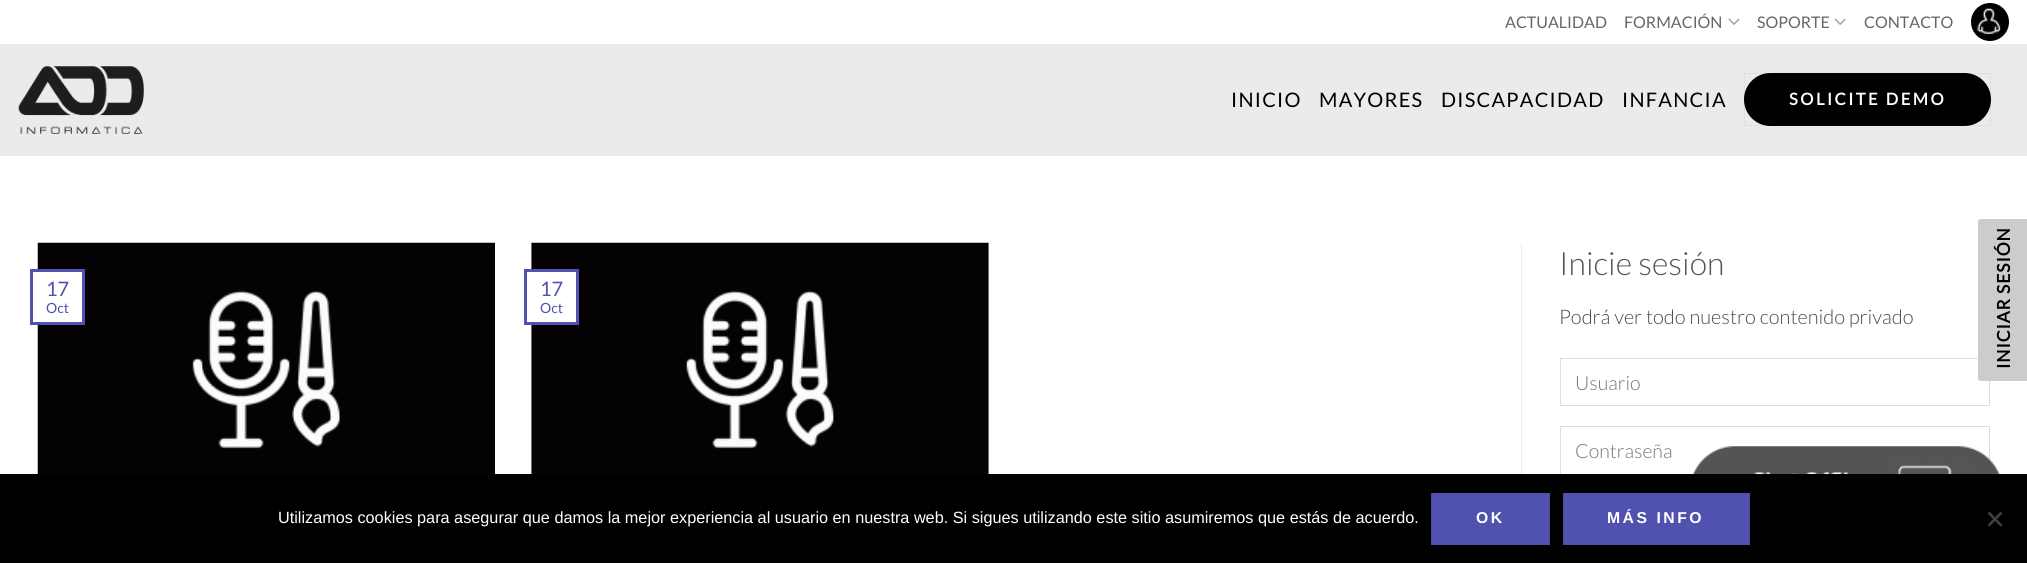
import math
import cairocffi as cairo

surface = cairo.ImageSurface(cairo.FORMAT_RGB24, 2027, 563)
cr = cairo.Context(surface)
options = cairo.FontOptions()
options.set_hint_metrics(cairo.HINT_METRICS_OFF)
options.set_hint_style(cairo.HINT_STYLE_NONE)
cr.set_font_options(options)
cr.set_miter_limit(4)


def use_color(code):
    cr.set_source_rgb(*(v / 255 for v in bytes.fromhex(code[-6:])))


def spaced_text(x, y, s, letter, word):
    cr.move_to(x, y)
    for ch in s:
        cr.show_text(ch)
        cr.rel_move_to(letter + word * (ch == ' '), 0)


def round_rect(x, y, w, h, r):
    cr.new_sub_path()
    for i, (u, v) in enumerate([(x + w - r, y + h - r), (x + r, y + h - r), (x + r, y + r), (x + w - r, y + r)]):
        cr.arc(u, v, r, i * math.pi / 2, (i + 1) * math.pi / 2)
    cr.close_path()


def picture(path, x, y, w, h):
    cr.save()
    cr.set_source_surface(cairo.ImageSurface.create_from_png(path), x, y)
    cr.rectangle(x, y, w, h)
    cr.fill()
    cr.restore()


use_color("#ffffff")
cr.paint()
cr.select_font_face("Lato")
cr.set_font_size(16)
use_color("#666666")
cr.move_to(1505, 28)
cr.show_text("ACTUALIDAD")
cr.move_to(1624, 28)
cr.show_text("FORMACIÓN")
picture("img1.png", 1728, 18, 12, 7)
cr.move_to(1757, 28)
cr.show_text("SOPORTE")
picture("img2.png", 1834, 18, 12, 7)
cr.move_to(1864, 28)
cr.show_text("CONTACTO")
use_color("#000000")
cr.new_path()
cr.arc(1990, 22, 19, 0, 2 * math.pi)
cr.fill()
picture("img3.png", 1977, 8, 24, 26)
use_color("#ebebeb")
cr.rectangle(0, 44, 2027, 112)
cr.fill()
picture("img4.png", 18, 66, 126, 68)
cr.set_font_size(20)
use_color("#000000")
spaced_text(1231, 107, "INICIO", 1.25, 0)
spaced_text(1319, 107, "MAYORES", 1.25, 0)
spaced_text(1441, 107, "DISCAPACIDAD", 1.25, 0)
spaced_text(1622, 107, "INFANCIA", 1.25, 0)
round_rect(1744, 73, 247, 53, 26.5)
cr.fill()
cr.rectangle(1744.5, 73.5, 246, 52)
cr.set_source_rgba(0, 0, 0, 0.05)
cr.set_line_width(1)
cr.stroke()
cr.select_font_face("Lato", cairo.FONT_SLANT_NORMAL, cairo.FONT_WEIGHT_BOLD)
cr.set_font_size(16.5)
use_color("#ffffff")
spaced_text(1789, 105, "SOLICITE DEMO", 2.5, 0)
picture("img5.png", 37, 242, 458, 232)
cr.rectangle(37, 272, 45, 50)
cr.fill()
cr.rectangle(31.5, 270.5, 52, 53)
use_color("#5151af")
cr.set_line_width(3)
cr.stroke()
cr.select_font_face("Lato")
cr.set_font_size(20)
cr.move_to(46, 296)
cr.show_text("17")
cr.set_font_size(14)
cr.move_to(46, 313)
cr.show_text("Oct")
picture("img6.png", 531, 242, 458, 232)
use_color("#ffffff")
cr.rectangle(531, 272, 45, 50)
cr.fill()
cr.rectangle(525.5, 270.5, 52, 53)
use_color("#5151af")
cr.stroke()
cr.set_font_size(20)
cr.move_to(540, 296)
cr.show_text("17")
cr.set_font_size(14)
cr.move_to(540, 313)
cr.show_text("Oct")
use_color("#ececec")
cr.rectangle(1521, 243, 1, 231)
cr.fill()
cr.select_font_face("Lato Light")
cr.set_font_size(32)
use_color("#555555")
cr.move_to(1559, 275)
cr.show_text("Inicie sesión")
cr.set_font_size(20)
use_color("#4a4a4a")
cr.move_to(1559, 324)
cr.show_text("Podrá ver todo nuestro contenido privado")
cr.rectangle(1560.5, 358.5, 429, 47)
use_color("#dddddd")
cr.set_line_width(1)
cr.stroke()
cr.set_font_size(19.5)
use_color("#757575")
cr.move_to(1575, 390)
cr.show_text("Usuario")
cr.rectangle(1560.5, 426.5, 429, 48)
use_color("#dddddd")
cr.stroke()
use_color("#757575")
cr.move_to(1575, 458)
cr.show_text("Contraseña")
use_color("#cccccc")
cr.new_path()
cr.move_to(1978, 378)
cr.line_to(1978, 222)
cr.curve_to(1978, 220, 1979, 219, 1981, 219)
cr.line_to(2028, 219)
cr.line_to(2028, 381)
cr.line_to(1981, 381)
cr.curve_to(1979, 381, 1978, 380, 1978, 378)
cr.close_path()
cr.fill()
cr.select_font_face("Lato", cairo.FONT_SLANT_NORMAL, cairo.FONT_WEIGHT_BOLD)
cr.set_font_size(17.5)
use_color("#000000")
cr.save()
cr.translate(2010, 369)
cr.rotate(-90 * math.pi / 180)
spaced_text(0, 0, "INICIAR SESIÓN", 0.9, 0)
cr.restore()
picture("img7.png", 1692, 446, 308, 28)
cr.rectangle(0, 474, 2027, 89)
cr.fill()
cr.select_font_face("Liberation Sans")
cr.set_font_size(16.25)
use_color("#ffffff")
cr.move_to(278, 523)
cr.show_text("Utilizamos cookies para asegurar que damos la mejor experiencia al usuario en nuestra web. Si sigues utilizando este sitio asumiremos que estás de acuerdo.")
use_color("#5151af")
cr.rectangle(1431.5, 493.5, 118, 51)
cr.fill_preserve()
use_color("#4d4da6")
cr.stroke()
cr.select_font_face("Liberation Sans", cairo.FONT_SLANT_NORMAL, cairo.FONT_WEIGHT_BOLD)
cr.set_font_size(15.75)
use_color("#ffffff")
spaced_text(1476, 523, "OK", 2.5, 0)
use_color("#5151af")
cr.rectangle(1563.5, 493.5, 186, 51)
cr.fill_preserve()
use_color("#4d4da6")
cr.stroke()
use_color("#ffffff")
spaced_text(1607, 523, "MÁS INFO", 2.5, 0)
use_color("#404040")
cr.new_path()
cr.move_to(2000.5, 511.5)
cr.line_to(2002.5, 513.5)
cr.line_to(1989.5, 526.5)
cr.line_to(1987.5, 525)
cr.close_path()
cr.fill()
cr.new_path()
cr.move_to(1987.5, 513.5)
cr.line_to(1989.5, 511.5)
cr.line_to(2002.5, 525)
cr.line_to(2000.5, 526.5)
cr.close_path()
cr.fill()
surface.write_to_png("result.png")
